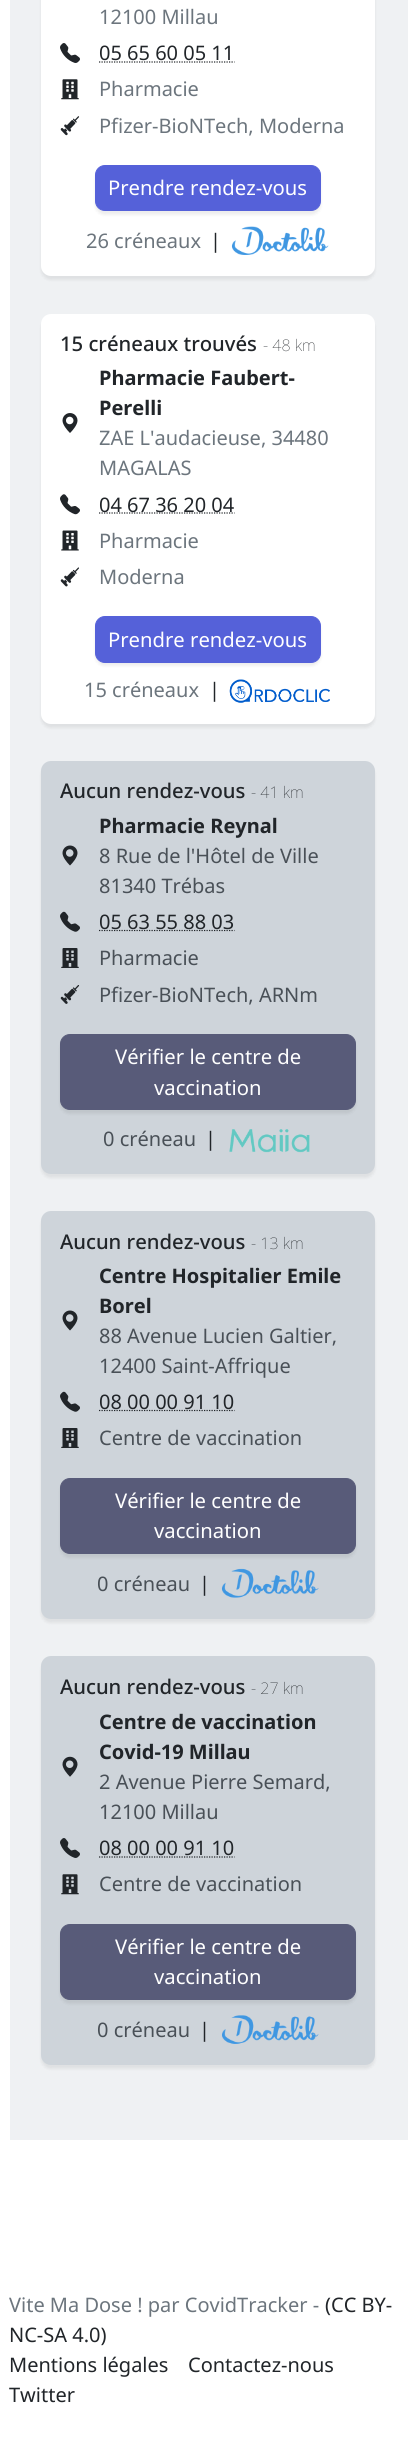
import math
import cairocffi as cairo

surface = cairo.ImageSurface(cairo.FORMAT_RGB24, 416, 2450)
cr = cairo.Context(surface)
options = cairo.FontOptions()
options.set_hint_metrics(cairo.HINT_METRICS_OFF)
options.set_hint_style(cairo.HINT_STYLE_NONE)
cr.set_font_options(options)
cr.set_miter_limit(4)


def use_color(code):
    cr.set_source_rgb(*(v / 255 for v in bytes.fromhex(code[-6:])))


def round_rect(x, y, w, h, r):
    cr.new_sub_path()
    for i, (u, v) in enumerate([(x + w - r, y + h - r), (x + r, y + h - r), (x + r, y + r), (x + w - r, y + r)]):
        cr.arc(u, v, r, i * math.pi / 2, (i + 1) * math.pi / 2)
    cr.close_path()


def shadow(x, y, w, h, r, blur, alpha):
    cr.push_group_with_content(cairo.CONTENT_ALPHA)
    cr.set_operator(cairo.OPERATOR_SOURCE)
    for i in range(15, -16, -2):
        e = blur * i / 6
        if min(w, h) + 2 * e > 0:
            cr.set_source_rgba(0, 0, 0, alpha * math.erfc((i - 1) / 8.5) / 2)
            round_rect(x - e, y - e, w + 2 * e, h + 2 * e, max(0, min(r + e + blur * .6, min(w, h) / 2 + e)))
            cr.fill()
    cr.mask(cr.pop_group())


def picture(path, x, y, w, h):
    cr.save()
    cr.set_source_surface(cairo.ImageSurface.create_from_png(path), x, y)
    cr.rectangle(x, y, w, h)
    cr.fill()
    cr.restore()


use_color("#ffffff")
cr.paint()
use_color("#eff1f3")
cr.rectangle(10, 0, 398, 2140)
cr.fill()
use_color("#000000")
shadow(41, -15, 334, 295, 10, 1.5, 0.07)
use_color("#ffffff")
round_rect(41, -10, 334, 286, 10)
cr.fill()
cr.select_font_face("Noto Sans")
cr.set_font_size(20)
use_color("#6c757d")
cr.move_to(99, 24)
cr.show_text("12100 Millau")
picture("img1.png", 60, 43, 20, 20)
use_color("#212529")
cr.move_to(99, 60)
cr.show_text("05 65 60 05 11")
cr.new_path()
cr.move_to(99, 62)
cr.line_to(234.5, 62)
cr.set_line_width(1.2)
cr.set_dash([1.25, 1.25])
cr.stroke()
picture("img2.png", 61, 79, 18, 21)
use_color("#6c757d")
cr.move_to(99, 96)
cr.show_text("Pharmacie")
picture("img3.png", 60, 116, 20, 20)
cr.move_to(99, 133)
cr.show_text("Pfizer-BioNTech, Moderna")
use_color("#000000")
shadow(95, 169, 226, 46, 10, 1.5, 0.07)
use_color("#5561d9")
round_rect(95.5, 165.5, 225, 45, 9.5)
cr.fill_preserve()
cr.set_line_width(1)
cr.set_dash([])
cr.stroke()
cr.set_font_size(20.25)
use_color("#ffffff")
cr.move_to(108, 195)
cr.show_text("Prendre rendez-vous")
cr.set_font_size(20)
use_color("#6c757d")
cr.move_to(86, 248)
cr.show_text("26 créneaux")
use_color("#212529")
cr.move_to(210, 248)
cr.show_text("|")
picture("img4.png", 231, 226, 98, 29)
use_color("#000000")
shadow(41, 318, 334, 410, 10, 1.5, 0.07)
use_color("#ffffff")
round_rect(41, 314, 334, 410, 10)
cr.fill()
cr.select_font_face("Noto Sans Medium")
cr.set_font_size(20.25)
use_color("#212529")
cr.move_to(60, 351)
cr.show_text("15 créneaux trouvés")
cr.select_font_face("Noto Sans Thin")
cr.set_font_size(16)
cr.move_to(263, 351)
cr.show_text("- 48 km")
picture("img5.png", 62, 413, 16, 20)
cr.select_font_face("Noto Sans", cairo.FONT_SLANT_NORMAL, cairo.FONT_WEIGHT_BOLD)
cr.set_font_size(20)
cr.move_to(99, 385)
cr.show_text("Pharmacie Faubert-")
cr.move_to(99, 415)
cr.show_text("Perelli")
cr.select_font_face("Noto Sans")
use_color("#6c757d")
cr.move_to(99, 445)
cr.show_text("ZAE L'audacieuse, 34480")
cr.move_to(99, 475)
cr.show_text("MAGALAS")
picture("img6.png", 60, 494, 20, 21)
cr.new_path()
cr.move_to(99, 513)
cr.line_to(234.5, 513)
use_color("#212529")
cr.set_line_width(1.2)
cr.set_dash([1.25, 1.25])
cr.stroke()
cr.move_to(99, 512)
cr.show_text("04 67 36 20 04")
picture("img7.png", 61, 530, 18, 21)
use_color("#6c757d")
cr.move_to(99, 548)
cr.show_text("Pharmacie")
picture("img8.png", 60, 567, 19, 20)
cr.move_to(99, 584)
cr.show_text("Moderna")
use_color("#000000")
shadow(95, 620, 226, 46, 10, 1.5, 0.07)
use_color("#5561d9")
round_rect(95.5, 616.5, 225, 46, 9.5)
cr.fill_preserve()
cr.set_line_width(1)
cr.set_dash([])
cr.stroke()
cr.set_font_size(20.25)
use_color("#ffffff")
cr.move_to(108, 647)
cr.show_text("Prendre rendez-vous")
cr.set_font_size(20)
use_color("#6c757d")
cr.move_to(84, 697)
cr.show_text("15 créneaux")
use_color("#212529")
cr.move_to(209, 697)
cr.show_text("|")
picture("img9.png", 229, 679, 101, 24)
use_color("#000000")
shadow(41, 765, 334, 413, 10, 1.5, 0.07)
use_color("#ced4da")
round_rect(41, 761, 334, 413, 10)
cr.fill()
cr.select_font_face("Noto Sans Medium")
cr.set_font_size(20.25)
use_color("#212529")
cr.move_to(60, 798)
cr.show_text("Aucun rendez-vous")
cr.select_font_face("Noto Sans Thin")
cr.set_font_size(16)
cr.move_to(251, 798)
cr.show_text("- 41 km")
picture("img10.png", 62, 845, 16, 21)
cr.select_font_face("Noto Sans", cairo.FONT_SLANT_NORMAL, cairo.FONT_WEIGHT_BOLD)
cr.set_font_size(20)
cr.move_to(99, 833)
cr.show_text("Pharmacie Reynal")
cr.select_font_face("Noto Sans")
use_color("#495057")
cr.move_to(99, 863)
cr.show_text("8 Rue de l'Hôtel de Ville")
cr.move_to(99, 893)
cr.show_text("81340 Trébas")
picture("img11.png", 60, 911, 20, 21)
cr.new_path()
cr.move_to(99, 930.5)
cr.line_to(234.5, 930.5)
use_color("#212529")
cr.set_line_width(1.2)
cr.set_dash([1.25, 1.25])
cr.stroke()
cr.move_to(99, 929)
cr.show_text("05 63 55 88 03")
picture("img12.png", 61, 948, 18, 20)
use_color("#495057")
cr.move_to(99, 965)
cr.show_text("Pharmacie")
picture("img13.png", 60, 985, 20, 19)
cr.move_to(99, 1002)
cr.show_text("Pfizer-BioNTech, ARNm")
use_color("#000000")
shadow(60, 1038, 296, 76, 10, 1.5, 0.07)
use_color("#585b79")
round_rect(60.5, 1034.5, 295, 75, 9.5)
cr.fill_preserve()
cr.set_line_width(1)
cr.set_dash([])
cr.stroke()
cr.set_font_size(20.25)
use_color("#ffffff")
cr.move_to(115, 1064)
cr.show_text("Vérifier le centre de")
cr.move_to(154, 1095)
cr.show_text("vaccination")
cr.set_font_size(20)
use_color("#495057")
cr.move_to(103, 1146)
cr.show_text("0 créneau")
use_color("#212529")
cr.move_to(205, 1146)
cr.show_text("|")
picture("img14.png", 229, 1129, 81, 24)
use_color("#000000")
shadow(41, 1215, 334, 408, 10, 1.5, 0.07)
use_color("#ced4da")
round_rect(41, 1211, 334, 408, 10)
cr.fill()
cr.select_font_face("Noto Sans Medium")
cr.set_font_size(20.25)
use_color("#212529")
cr.move_to(60, 1249)
cr.show_text("Aucun rendez-vous")
cr.select_font_face("Noto Sans Thin")
cr.set_font_size(16)
cr.move_to(251, 1249)
cr.show_text("- 13 km")
picture("img10.png", 62, 1310, 16, 21)
cr.select_font_face("Noto Sans", cairo.FONT_SLANT_NORMAL, cairo.FONT_WEIGHT_BOLD)
cr.set_font_size(20)
cr.move_to(99, 1283)
cr.show_text("Centre Hospitalier Emile")
cr.move_to(99, 1313)
cr.show_text("Borel")
cr.select_font_face("Noto Sans")
use_color("#495057")
cr.move_to(99, 1343)
cr.show_text("88 Avenue Lucien Galtier,")
cr.move_to(99, 1373)
cr.show_text("12400 Saint-Affrique")
picture("img11.png", 60, 1391, 20, 21)
cr.new_path()
cr.move_to(99, 1410.5)
cr.line_to(234.5, 1410.5)
use_color("#212529")
cr.set_line_width(1.2)
cr.set_dash([1.25, 1.25])
cr.stroke()
cr.move_to(99, 1409)
cr.show_text("08 00 00 91 10")
picture("img12.png", 61, 1428, 18, 20)
use_color("#495057")
cr.move_to(99, 1445)
cr.show_text("Centre de vaccination")
use_color("#000000")
shadow(60, 1481, 296, 77, 10, 1.5, 0.07)
use_color("#585b79")
round_rect(60.5, 1478.5, 295, 75, 9.5)
cr.fill_preserve()
cr.set_line_width(1)
cr.set_dash([])
cr.stroke()
cr.set_font_size(20.25)
use_color("#ffffff")
cr.move_to(115, 1508)
cr.show_text("Vérifier le centre de")
cr.move_to(154, 1538)
cr.show_text("vaccination")
cr.set_font_size(20)
use_color("#495057")
cr.move_to(97, 1591)
cr.show_text("0 créneau")
use_color("#212529")
cr.move_to(199, 1591)
cr.show_text("|")
picture("img15.png", 221, 1568, 98, 30)
use_color("#000000")
shadow(41, 1660, 334, 409, 10, 1.5, 0.07)
use_color("#ced4da")
round_rect(41, 1656, 334, 409, 10)
cr.fill()
cr.select_font_face("Noto Sans Medium")
cr.set_font_size(20.25)
use_color("#212529")
cr.move_to(60, 1694)
cr.show_text("Aucun rendez-vous")
cr.select_font_face("Noto Sans Thin")
cr.set_font_size(16)
cr.move_to(251, 1694)
cr.show_text("- 27 km")
picture("img16.png", 62, 1756, 16, 21)
cr.select_font_face("Noto Sans", cairo.FONT_SLANT_NORMAL, cairo.FONT_WEIGHT_BOLD)
cr.set_font_size(20)
cr.move_to(99, 1729)
cr.show_text("Centre de vaccination")
cr.move_to(99, 1759)
cr.show_text("Covid-19 Millau")
cr.select_font_face("Noto Sans")
use_color("#495057")
cr.move_to(99, 1789)
cr.show_text("2 Avenue Pierre Semard,")
cr.move_to(99, 1819)
cr.show_text("12100 Millau")
picture("img17.png", 60, 1838, 20, 20)
use_color("#212529")
cr.move_to(99, 1855)
cr.show_text("08 00 00 91 10")
cr.new_path()
cr.move_to(99, 1857)
cr.line_to(234.5, 1857)
cr.set_line_width(1.2)
cr.set_dash([1.25, 1.25])
cr.stroke()
picture("img18.png", 61, 1874, 18, 21)
use_color("#495057")
cr.move_to(99, 1891)
cr.show_text("Centre de vaccination")
use_color("#000000")
shadow(60, 1928, 296, 76, 10, 1.5, 0.07)
use_color("#585b79")
round_rect(60.5, 1924.5, 295, 75, 9.5)
cr.fill_preserve()
cr.set_line_width(1)
cr.set_dash([])
cr.stroke()
cr.set_font_size(20.25)
use_color("#ffffff")
cr.move_to(115, 1954)
cr.show_text("Vérifier le centre de")
cr.move_to(154, 1984)
cr.show_text("vaccination")
cr.set_font_size(20)
use_color("#495057")
cr.move_to(97, 2037)
cr.show_text("0 créneau")
use_color("#212529")
cr.move_to(199, 2037)
cr.show_text("|")
picture("img19.png", 222, 2015, 97, 29)
use_color("#6c757d")
cr.move_to(9, 2312)
cr.show_text("Vite Ma Dose ! par CovidTracker -")
use_color("#212529")
cr.move_to(325, 2312)
cr.show_text("(CC BY-")
cr.move_to(9, 2342)
cr.show_text("NC-SA 4.0)")
cr.move_to(9, 2372)
cr.show_text("Mentions légales")
cr.move_to(188, 2372)
cr.show_text("Contactez-nous")
cr.move_to(9, 2402)
cr.show_text("Twitter")
surface.write_to_png("result.png")
